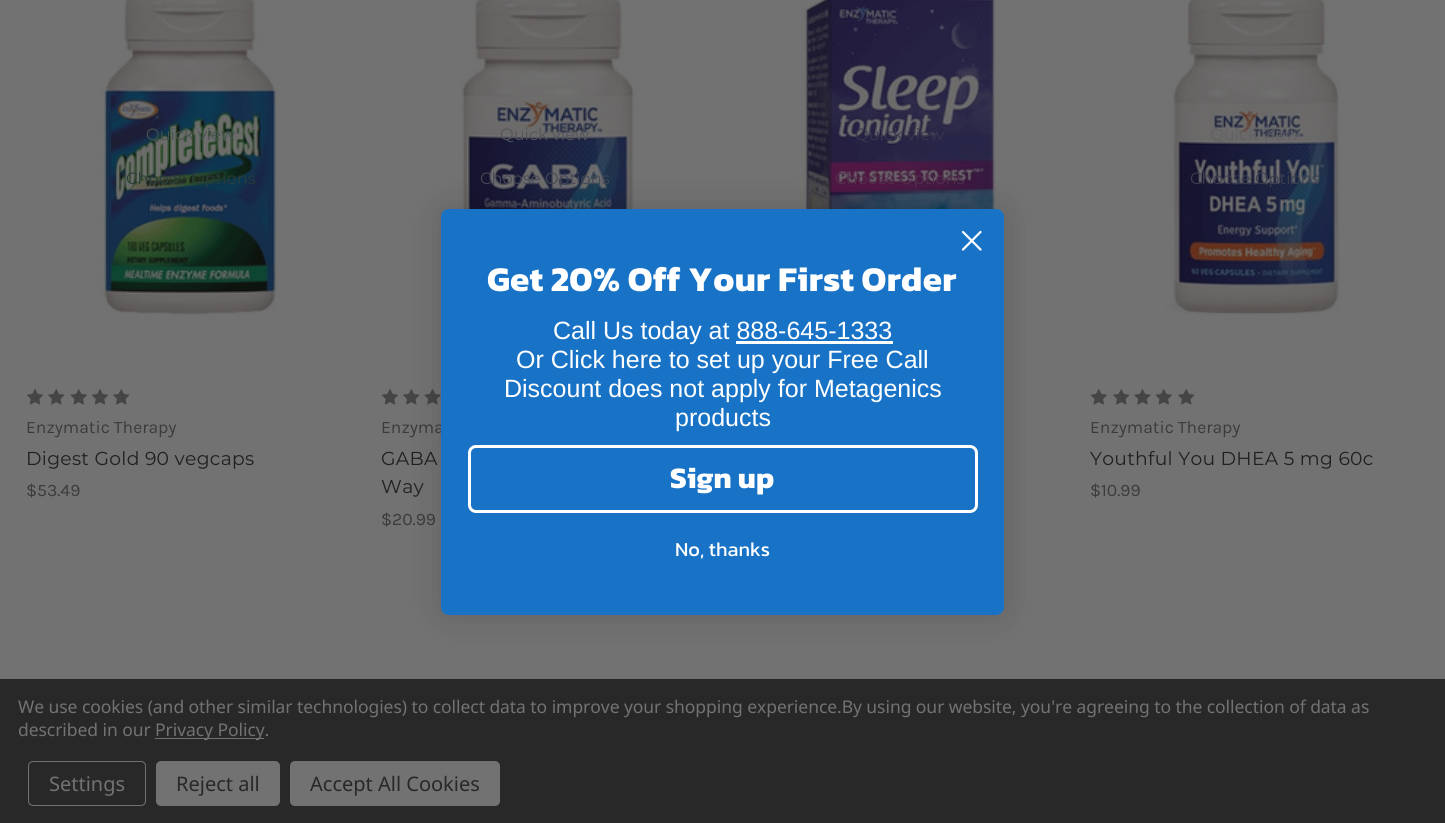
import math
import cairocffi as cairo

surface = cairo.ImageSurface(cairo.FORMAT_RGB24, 1445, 823)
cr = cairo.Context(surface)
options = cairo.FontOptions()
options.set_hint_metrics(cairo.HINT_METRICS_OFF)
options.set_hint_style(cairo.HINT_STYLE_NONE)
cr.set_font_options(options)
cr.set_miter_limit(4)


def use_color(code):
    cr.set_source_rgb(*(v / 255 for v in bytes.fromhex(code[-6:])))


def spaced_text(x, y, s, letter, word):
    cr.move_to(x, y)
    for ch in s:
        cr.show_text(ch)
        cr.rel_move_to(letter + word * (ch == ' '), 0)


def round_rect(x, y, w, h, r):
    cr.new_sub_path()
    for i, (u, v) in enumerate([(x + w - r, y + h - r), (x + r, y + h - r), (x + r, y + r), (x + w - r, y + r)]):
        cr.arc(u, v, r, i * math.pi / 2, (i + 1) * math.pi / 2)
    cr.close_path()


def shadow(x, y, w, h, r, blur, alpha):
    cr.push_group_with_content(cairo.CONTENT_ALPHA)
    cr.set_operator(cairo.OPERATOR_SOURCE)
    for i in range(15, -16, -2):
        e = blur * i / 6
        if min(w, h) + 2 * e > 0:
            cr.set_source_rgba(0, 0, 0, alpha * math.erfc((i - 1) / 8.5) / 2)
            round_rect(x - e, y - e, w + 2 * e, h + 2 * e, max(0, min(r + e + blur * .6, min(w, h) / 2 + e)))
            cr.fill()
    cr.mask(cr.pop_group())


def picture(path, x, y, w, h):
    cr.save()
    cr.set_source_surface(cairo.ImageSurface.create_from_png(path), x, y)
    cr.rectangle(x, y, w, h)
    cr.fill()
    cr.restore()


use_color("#727272")
cr.paint()
picture("img1.png", 100, 0, 178, 316)
cr.select_font_face("Montserrat Thin")
cr.set_font_size(16.25)
use_color("#465350")
cr.move_to(146, 140)
cr.show_text("Quick view")
use_color("#283d39")
cr.move_to(126, 184)
cr.show_text("Choose Options")
picture("img2.png", 27, 389, 16, 16)
picture("img3.png", 48, 389, 17, 16)
picture("img4.png", 70, 389, 17, 16)
picture("img2.png", 92, 389, 16, 16)
picture("img3.png", 113, 389, 17, 16)
cr.select_font_face("Karla")
cr.set_font_size(17.5)
use_color("#3b3b3b")
cr.move_to(26, 433)
cr.show_text("Enzymatic Therapy")
cr.select_font_face("Montserrat Thin")
cr.set_font_size(18.75)
use_color("#202020")
spaced_text(26, 465, "Digest Gold 90 vegcaps", 0.3, 0)
cr.select_font_face("Karla")
cr.set_font_size(17.5)
use_color("#3b3b3b")
cr.move_to(26, 496)
cr.show_text("$53.49")
picture("img5.png", 460, 0, 177, 209)
cr.select_font_face("Montserrat Thin")
cr.set_font_size(16.25)
use_color("#54545c")
cr.move_to(500, 140)
cr.show_text("Quick view")
use_color("#454856")
cr.move_to(480, 184)
cr.show_text("Choose Options")
picture("img2.png", 382, 389, 16, 16)
picture("img3.png", 403, 389, 17, 16)
picture("img6.png", 424, 389, 17, 16)
cr.select_font_face("Karla")
cr.set_font_size(17.5)
use_color("#3b3b3b")
cr.move_to(381, 433)
cr.show_text("Enzyma")
cr.select_font_face("Montserrat Thin")
cr.set_font_size(18.75)
use_color("#202020")
spaced_text(381, 465, "GABA", 0.3, 0)
spaced_text(381, 493, "Way", 0.3, 0)
cr.select_font_face("Karla")
cr.set_font_size(17.5)
use_color("#3b3b3b")
cr.move_to(381, 525)
cr.show_text("$20.99")
picture("img7.png", 798, 0, 198, 209)
cr.select_font_face("Montserrat Thin")
cr.set_font_size(16.25)
use_color("#39374f")
cr.move_to(855, 140)
cr.show_text("Quick view")
use_color("#53304e")
cr.move_to(835, 184)
cr.show_text("Choose Options")
picture("img8.png", 1166, 0, 175, 316)
use_color("#616064")
cr.move_to(1210, 140)
cr.show_text("Quick view")
use_color("#3b3f50")
cr.move_to(1190, 184)
cr.show_text("Choose Options")
picture("img4.png", 1090, 389, 17, 16)
picture("img3.png", 1113, 389, 17, 16)
picture("img6.png", 1134, 389, 17, 16)
picture("img4.png", 1155, 389, 17, 16)
picture("img3.png", 1178, 389, 17, 16)
cr.select_font_face("Karla")
cr.set_font_size(17.5)
use_color("#3b3b3b")
cr.move_to(1090, 433)
cr.show_text("Enzymatic Therapy")
cr.select_font_face("Montserrat Thin")
cr.set_font_size(18.75)
use_color("#202020")
spaced_text(1090, 465, "Youthful You DHEA 5 mg 60c", 0.3, 0)
cr.select_font_face("Karla")
cr.set_font_size(17.5)
use_color("#3b3b3b")
cr.move_to(1090, 496)
cr.show_text("$10.99")
use_color("#000000")
shadow(441, 209, 563, 406, 8, 19, 0.15)
use_color("#1873c7")
round_rect(441, 209, 563, 406, 8)
cr.fill()
cr.new_path()
cr.move_to(963, 232)
cr.line_to(980.5, 249.5)
cr.move_to(963, 249.5)
cr.line_to(980.5, 232)
cr.close_path()
use_color("#ffffff")
cr.set_line_width(2.2)
cr.set_line_cap(cairo.LINE_CAP_ROUND)
cr.set_line_join(cairo.LINE_JOIN_ROUND)
cr.stroke()
cr.select_font_face("Kanit", cairo.FONT_SLANT_NORMAL, cairo.FONT_WEIGHT_BOLD)
cr.set_font_size(35)
spaced_text(487, 291, "Get 20% Off Your First Order", 0.3, 0)
cr.select_font_face("Liberation Sans")
cr.set_font_size(25)
cr.move_to(553, 339)
cr.show_text("Call Us today at 888-645-1333")
cr.rectangle(736, 341, 157, 3)
cr.fill()
cr.move_to(516, 368)
cr.show_text("Or Click here to set up your Free Call")
cr.move_to(504, 397)
cr.show_text("Discount does not apply for Metagenics")
cr.move_to(675, 426)
cr.show_text("products")
round_rect(469.5, 446.5, 507, 65, 6.5)
cr.set_line_width(3)
cr.set_line_cap(cairo.LINE_CAP_BUTT)
cr.set_line_join(cairo.LINE_JOIN_MITER)
cr.stroke()
cr.select_font_face("Kanit", cairo.FONT_SLANT_NORMAL, cairo.FONT_WEIGHT_BOLD)
cr.set_font_size(30)
cr.move_to(670, 488)
cr.show_text("Sign up")
cr.select_font_face("Kanit")
cr.set_font_size(20)
cr.move_to(675, 556)
cr.show_text("No, thanks")
use_color("#282828")
cr.rectangle(0, 679, 1445, 144)
cr.fill()
cr.select_font_face("Noto Sans")
cr.set_font_size(17.5)
use_color("#727272")
spaced_text(18, 713, "We use cookies (and other similar technologies) to collect data to improve your shopping experience.By using our website, you're agreeing to the collection of data as", -0.06, 0)
spaced_text(18, 736, "described in our", -0.06, 0)
cr.rectangle(155, 738, 109, 1)
cr.fill()
spaced_text(155, 736, "Privacy Policy.", -0.06, 0)
round_rect(28.5, 761.5, 117, 44, 4.5)
cr.set_line_width(1)
cr.stroke()
cr.set_font_size(20)
cr.move_to(49, 791)
cr.show_text("Settings")
round_rect(156, 761, 124, 45, 5)
cr.fill()
use_color("#282828")
cr.move_to(176, 791)
cr.show_text("Reject all")
use_color("#727272")
round_rect(290, 761, 210, 45, 5)
cr.fill()
use_color("#282828")
cr.move_to(310, 791)
cr.show_text("Accept All Cookies")
surface.write_to_png("result.png")
